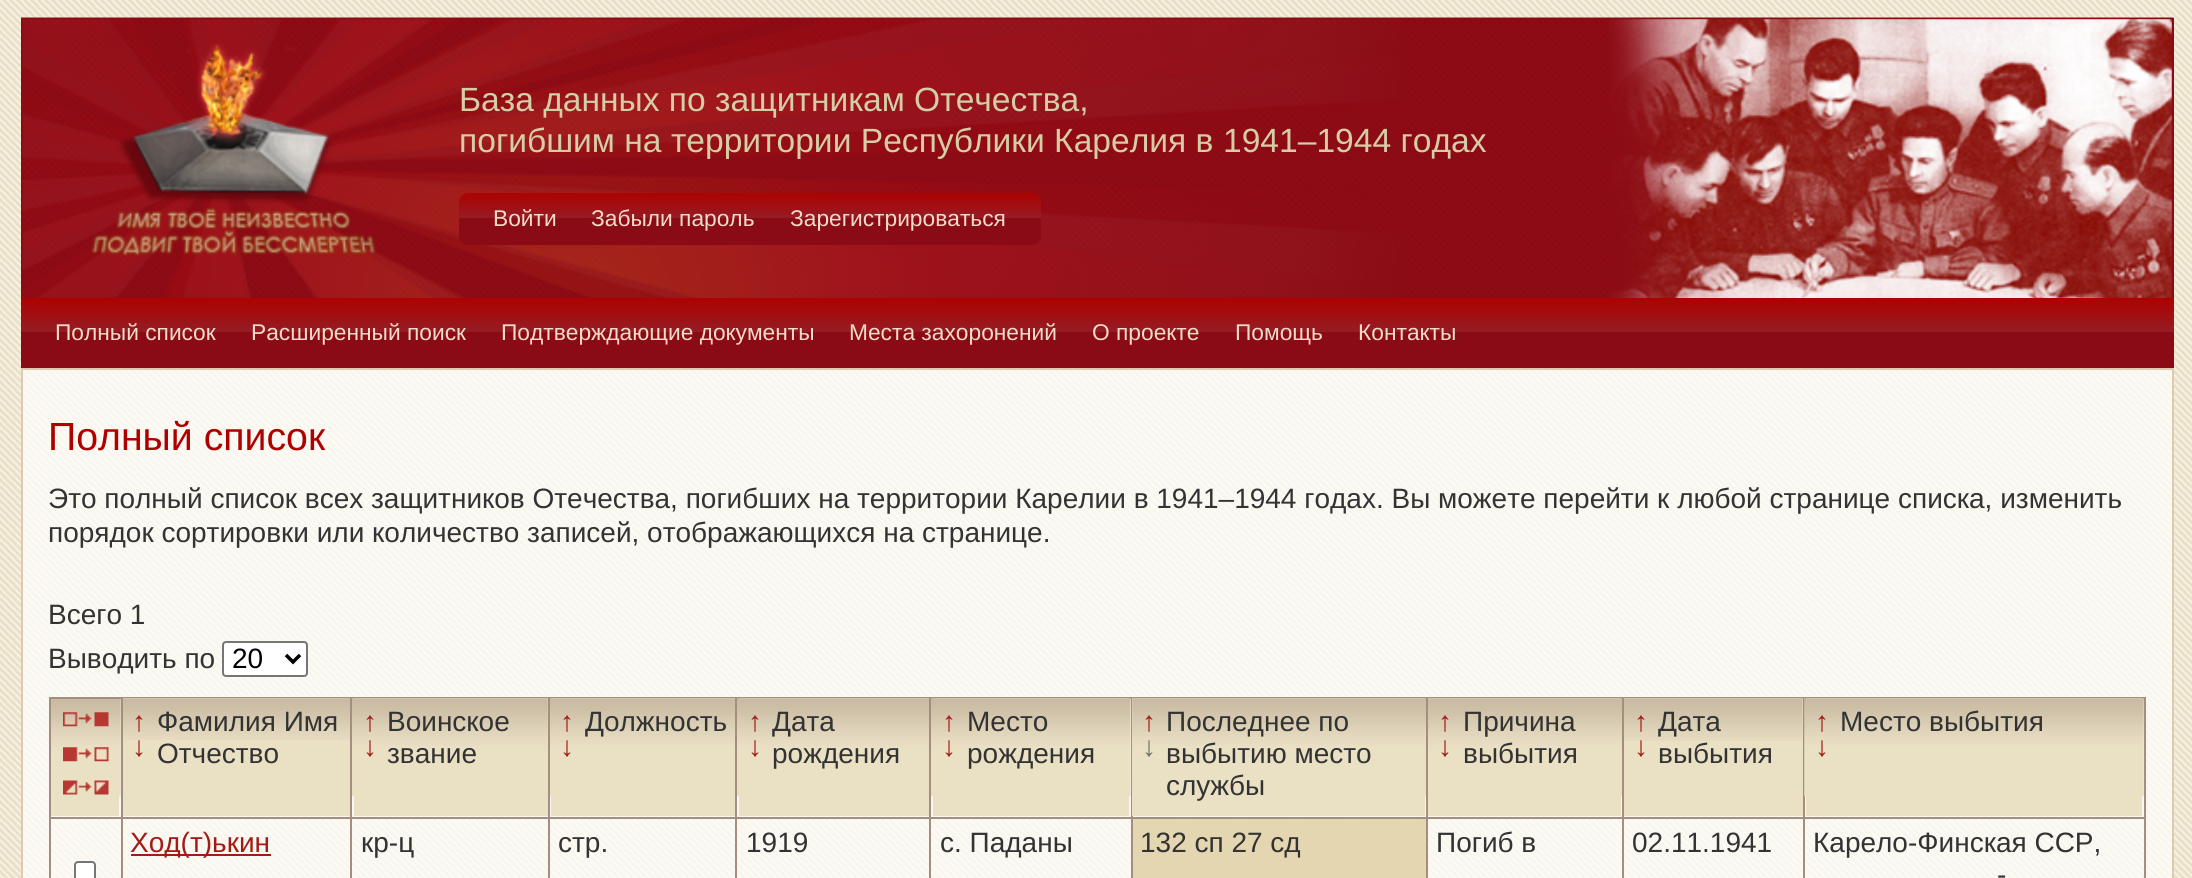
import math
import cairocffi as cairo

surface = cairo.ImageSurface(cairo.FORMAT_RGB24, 2192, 878)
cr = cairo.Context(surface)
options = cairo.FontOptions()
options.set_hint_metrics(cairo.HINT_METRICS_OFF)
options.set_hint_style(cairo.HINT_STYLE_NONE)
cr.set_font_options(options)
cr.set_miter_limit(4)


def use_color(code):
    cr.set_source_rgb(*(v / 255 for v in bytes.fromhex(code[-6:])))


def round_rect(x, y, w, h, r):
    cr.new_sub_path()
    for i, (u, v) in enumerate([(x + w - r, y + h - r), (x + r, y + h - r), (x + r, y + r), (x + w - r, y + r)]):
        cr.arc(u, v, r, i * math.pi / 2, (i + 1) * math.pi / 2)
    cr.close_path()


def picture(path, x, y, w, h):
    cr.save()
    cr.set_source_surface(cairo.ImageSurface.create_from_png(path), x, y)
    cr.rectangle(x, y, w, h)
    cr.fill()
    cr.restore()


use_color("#ffffff")
cr.paint()
picture("img1.png", 0, 0, 2192, 878)
picture("img2.png", 21, 17, 2153, 279)
cr.rectangle(22, 19, 2151, 278)
use_color("#8a0b15")
cr.stroke()
picture("img3.png", 22, 19, 1379, 279)
picture("img4.png", 1609, 19, 563, 279)
cr.select_font_face("Liberation Sans")
cr.set_font_size(33.6)
use_color("#d5cda6")
cr.move_to(459, 111)
cr.show_text("База данных по защитникам Отечества,")
cr.move_to(459, 152)
cr.show_text("погибшим на территории Республики Карелия в")
cr.move_to(1223, 152)
cr.show_text("1941–1944 годах")
gradient = cairo.LinearGradient(750, 192, 750, 245)
gradient.add_color_stop_rgba(0, 0.686, 0, 0, 1)
gradient.add_color_stop_rgba(0.5, 0.58, 0.114, 0.145, 1)
gradient.add_color_stop_rgba(0.5, 0.541, 0.043, 0.082, 1)
cr.set_source(gradient)
round_rect(459, 193, 582, 52, 9)
cr.fill()
cr.set_font_size(22.75)
use_color("#f4dbca")
cr.move_to(493, 226)
cr.show_text("Войти")
cr.move_to(591, 226)
cr.show_text("Забыли пароль")
cr.move_to(790, 226)
cr.show_text("Зарегистрироваться")
gradient = cairo.LinearGradient(1097, 297, 1097, 368)
gradient.add_color_stop_rgba(0, 0.686, 0, 0, 1)
gradient.add_color_stop_rgba(0.5, 0.58, 0.114, 0.145, 1)
gradient.add_color_stop_rgba(0.5, 0.541, 0.043, 0.082, 1)
cr.set_source(gradient)
cr.rectangle(21, 298, 2153, 70)
cr.fill()
use_color("#f4dbca")
cr.move_to(55, 340)
cr.show_text("Полный список")
cr.move_to(251, 340)
cr.show_text("Расширенный поиск")
cr.move_to(501, 340)
cr.show_text("Подтверждающие документы")
cr.move_to(849, 340)
cr.show_text("Места захоронений")
cr.move_to(1092, 340)
cr.show_text("О проекте")
cr.move_to(1235, 340)
cr.show_text("Помощь")
cr.move_to(1358, 340)
cr.show_text("Контакты")
picture("img5.png", 23, 370, 2149, 508)
cr.rectangle(22, 369, 2151, 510)
use_color("#e0c8b1")
cr.stroke()
cr.set_font_size(39.25)
use_color("#af0000")
cr.move_to(48, 450)
cr.show_text("Полный список")
cr.set_font_size(28)
use_color("#333333")
cr.move_to(48, 508)
cr.show_text("Это полный список всех защитников Отечества, погибших на территории Карелии в 1941–1944 годах. Вы можете перейти к любой странице списка, изменить")
cr.move_to(48, 542)
cr.show_text("порядок сортировки или количество записей, отображающихся на странице.")
cr.move_to(48, 624)
cr.show_text("Всего 1")
cr.move_to(48, 668)
cr.show_text("Выводить по")
use_color("#ffffff")
round_rect(223, 642, 84, 34, 3)
cr.fill_preserve()
use_color("#767676")
cr.stroke()
cr.new_path()
cr.move_to(286, 655)
cr.line_to(293, 662)
cr.line_to(300, 655)
use_color("#000000")
cr.set_line_width(3.5)
cr.stroke()
cr.move_to(232, 668)
cr.show_text("20")
use_color("#eae0c4")
cr.rectangle(51, 796, 68, 20)
cr.fill()
picture("img6.png", 51, 699, 70, 98)
use_color("#a38e80")
cr.rectangle(1803, 697, 343, 2)
cr.fill()
cr.rectangle(1803, 817, 343, 2)
cr.fill()
cr.rectangle(1803, 817, 2, 61)
cr.fill()
cr.rectangle(1622, 817, 182, 2)
cr.fill()
cr.rectangle(1803, 697, 2, 122)
cr.fill()
cr.rectangle(1622, 697, 182, 2)
cr.fill()
cr.rectangle(1622, 817, 2, 61)
cr.fill()
cr.rectangle(1426, 817, 198, 2)
cr.fill()
cr.rectangle(1622, 697, 2, 122)
cr.fill()
cr.rectangle(1426, 697, 198, 2)
cr.fill()
cr.rectangle(1426, 817, 2, 61)
cr.fill()
cr.rectangle(1131, 817, 297, 2)
cr.fill()
cr.rectangle(1426, 697, 2, 122)
cr.fill()
cr.rectangle(1131, 697, 297, 2)
cr.fill()
cr.rectangle(1131, 817, 2, 61)
cr.fill()
cr.rectangle(929, 817, 203, 2)
cr.fill()
cr.rectangle(1131, 697, 2, 122)
cr.fill()
cr.rectangle(929, 697, 203, 2)
cr.fill()
cr.rectangle(929, 817, 2, 61)
cr.fill()
cr.rectangle(735, 817, 196, 2)
cr.fill()
cr.rectangle(929, 697, 2, 122)
cr.fill()
cr.rectangle(735, 697, 196, 2)
cr.fill()
cr.rectangle(735, 817, 2, 61)
cr.fill()
cr.rectangle(548, 817, 189, 2)
cr.fill()
cr.rectangle(735, 697, 2, 122)
cr.fill()
cr.rectangle(548, 697, 189, 2)
cr.fill()
cr.rectangle(548, 817, 2, 61)
cr.fill()
cr.rectangle(350, 817, 200, 2)
cr.fill()
cr.rectangle(548, 697, 2, 122)
cr.fill()
cr.rectangle(350, 697, 200, 2)
cr.fill()
cr.rectangle(350, 817, 2, 61)
cr.fill()
cr.rectangle(121, 817, 231, 2)
cr.fill()
cr.rectangle(350, 697, 2, 122)
cr.fill()
cr.rectangle(121, 697, 231, 2)
cr.fill()
cr.rectangle(121, 817, 2, 61)
cr.fill()
cr.rectangle(49, 817, 74, 2)
cr.fill()
cr.rectangle(121, 697, 2, 122)
cr.fill()
cr.rectangle(49, 697, 74, 2)
cr.fill()
cr.rectangle(49, 817, 2, 61)
cr.fill()
cr.rectangle(49, 697, 2, 122)
cr.fill()
picture("img7.png", 63, 712, 46, 15)
picture("img8.png", 63, 747, 46, 15)
picture("img9.png", 63, 780, 46, 15)
use_color("#eae0c4")
cr.rectangle(123, 698, 227, 118)
cr.fill()
picture("img10.png", 123, 698, 227, 42)
use_color("#a21b17")
cr.move_to(132, 731)
cr.show_text("↑")
use_color("#333333")
cr.move_to(157, 731)
cr.show_text("Фамилия Имя")
use_color("#a21b17")
cr.move_to(132, 756)
cr.show_text("↓")
use_color("#333333")
cr.move_to(157, 763)
cr.show_text("Отчество")
use_color("#eae0c4")
cr.rectangle(354, 698, 194, 118)
cr.fill()
picture("img11.png", 352, 698, 196, 99)
use_color("#a21b17")
cr.move_to(363, 731)
cr.show_text("↑")
use_color("#333333")
cr.move_to(387, 731)
cr.show_text("Воинское")
use_color("#a21b17")
cr.move_to(363, 756)
cr.show_text("↓")
use_color("#333333")
cr.move_to(387, 763)
cr.show_text("звание")
use_color("#eae0c4")
cr.rectangle(551, 698, 184, 118)
cr.fill()
picture("img12.png", 550, 698, 185, 99)
use_color("#a21b17")
cr.move_to(560, 731)
cr.show_text("↑")
use_color("#333333")
cr.move_to(585, 731)
cr.show_text("Должность")
use_color("#a21b17")
cr.move_to(560, 756)
cr.show_text("↓")
use_color("#eae0c4")
cr.rectangle(739, 698, 190, 118)
cr.fill()
picture("img13.png", 737, 698, 192, 99)
use_color("#a21b17")
cr.move_to(748, 731)
cr.show_text("↑")
use_color("#333333")
cr.move_to(772, 731)
cr.show_text("Дата")
use_color("#a21b17")
cr.move_to(748, 756)
cr.show_text("↓")
use_color("#333333")
cr.move_to(772, 763)
cr.show_text("рождения")
use_color("#eae0c4")
cr.rectangle(933, 698, 196, 118)
cr.fill()
picture("img14.png", 931, 698, 200, 99)
use_color("#a21b17")
cr.move_to(942, 731)
cr.show_text("↑")
use_color("#333333")
cr.move_to(967, 731)
cr.show_text("Место")
use_color("#a21b17")
cr.move_to(942, 756)
cr.show_text("↓")
use_color("#333333")
cr.move_to(967, 763)
cr.show_text("рождения")
use_color("#eae0c4")
cr.rectangle(1132, 698, 293, 118)
cr.fill()
picture("img15.png", 1132, 698, 294, 99)
use_color("#a21b17")
cr.move_to(1142, 731)
cr.show_text("↑")
use_color("#333333")
cr.move_to(1166, 731)
cr.show_text("Последнее по")
use_color("#6d6e71")
cr.move_to(1142, 756)
cr.show_text("↓")
use_color("#333333")
cr.move_to(1166, 763)
cr.show_text("выбытию место")
cr.move_to(1166, 795)
cr.show_text("службы")
use_color("#eae0c4")
cr.rectangle(1428, 698, 193, 118)
cr.fill()
picture("img16.png", 1428, 698, 194, 99)
use_color("#a21b17")
cr.move_to(1438, 731)
cr.show_text("↑")
use_color("#333333")
cr.move_to(1463, 731)
cr.show_text("Причина")
use_color("#a21b17")
cr.move_to(1438, 756)
cr.show_text("↓")
use_color("#333333")
cr.move_to(1463, 763)
cr.show_text("выбытия")
use_color("#eae0c4")
cr.rectangle(1624, 698, 179, 118)
cr.fill()
picture("img17.png", 1624, 698, 179, 43)
use_color("#a21b17")
cr.move_to(1634, 731)
cr.show_text("↑")
use_color("#333333")
cr.move_to(1658, 731)
cr.show_text("Дата")
use_color("#a21b17")
cr.move_to(1634, 756)
cr.show_text("↓")
use_color("#333333")
cr.move_to(1658, 763)
cr.show_text("выбытия")
use_color("#a38e80")
cr.rectangle(2144, 817, 2, 61)
cr.fill()
cr.rectangle(2144, 697, 2, 122)
cr.fill()
use_color("#eae0c4")
cr.rectangle(1806, 698, 336, 118)
cr.fill()
picture("img18.png", 1804, 698, 340, 99)
use_color("#a21b17")
cr.move_to(1815, 731)
cr.show_text("↑")
use_color("#333333")
cr.move_to(1840, 731)
cr.show_text("Место выбытия")
use_color("#a21b17")
cr.move_to(1815, 756)
cr.show_text("↓")
use_color("#ffffff")
round_rect(75, 862, 20, 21, 3)
cr.fill_preserve()
use_color("#767676")
cr.set_line_width(2)
cr.stroke()
use_color("#a21b17")
cr.rectangle(131, 854, 140, 2)
cr.fill()
cr.move_to(130, 852)
cr.show_text("Ход(т)ькин")
use_color("#333333")
cr.move_to(361, 852)
cr.show_text("кр-ц")
cr.move_to(558, 852)
cr.show_text("стр.")
cr.move_to(746, 852)
cr.show_text("1919")
cr.move_to(940, 852)
cr.show_text("с. Паданы")
use_color("#e3d6b1")
cr.rectangle(1133, 819, 293, 59)
cr.fill()
use_color("#333333")
cr.move_to(1140, 852)
cr.show_text("132 сп 27 сд")
cr.move_to(1436, 852)
cr.show_text("Погиб в")
cr.move_to(1632, 852)
cr.show_text("02.11.1941")
cr.move_to(1813, 852)
cr.show_text("Карело-Финская ССР,")
cr.move_to(1997, 884)
cr.show_text("-")
surface.write_to_png("result.png")
